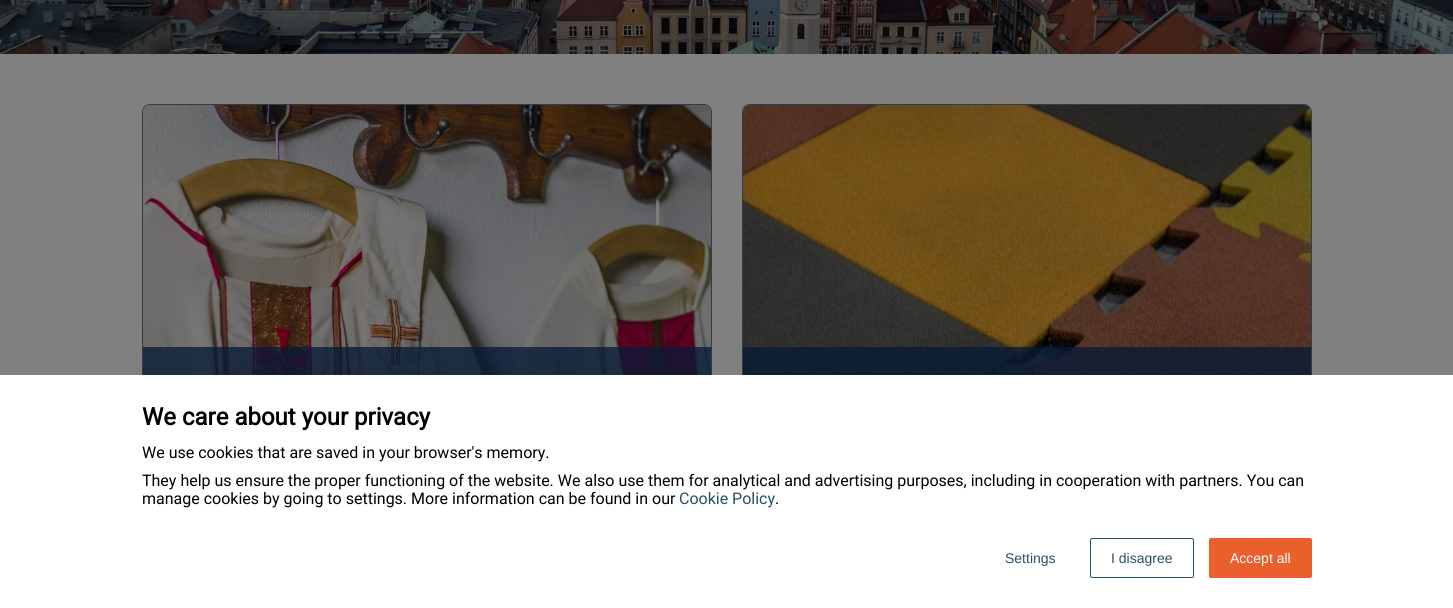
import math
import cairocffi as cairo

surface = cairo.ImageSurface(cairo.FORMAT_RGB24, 1453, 608)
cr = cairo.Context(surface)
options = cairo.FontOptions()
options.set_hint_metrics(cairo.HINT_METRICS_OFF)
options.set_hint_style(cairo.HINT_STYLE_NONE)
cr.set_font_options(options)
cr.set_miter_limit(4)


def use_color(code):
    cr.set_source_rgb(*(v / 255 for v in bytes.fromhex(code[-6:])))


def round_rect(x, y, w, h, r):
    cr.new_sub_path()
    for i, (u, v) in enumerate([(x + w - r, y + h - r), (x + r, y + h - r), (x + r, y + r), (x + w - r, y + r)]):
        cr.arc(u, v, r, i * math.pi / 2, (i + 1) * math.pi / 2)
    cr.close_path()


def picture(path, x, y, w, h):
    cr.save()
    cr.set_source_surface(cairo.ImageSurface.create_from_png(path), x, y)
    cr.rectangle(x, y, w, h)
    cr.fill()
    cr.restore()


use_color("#808080")
cr.paint()
picture("img1.png", 0, 0, 1453, 54)
round_rect(142.5, 104.5, 569, 399, 7.5)
use_color("#313b4a")
cr.set_line_width(1)
cr.stroke()
picture("img2.png", 143, 105, 568, 270)
cr.set_source_rgba(0.035, 0.106, 0.216, 0.77)
cr.rectangle(143, 347, 568, 28)
cr.fill()
round_rect(742.5, 104.5, 569, 399, 7.5)
use_color("#313b4a")
cr.stroke()
picture("img3.png", 743, 105, 568, 270)
cr.set_source_rgba(0.035, 0.106, 0.216, 0.77)
cr.rectangle(743, 347, 568, 28)
cr.fill()
use_color("#ffffff")
cr.rectangle(0, 375, 1453, 233)
cr.fill()
cr.select_font_face("Roboto", cairo.FONT_SLANT_NORMAL, cairo.FONT_WEIGHT_BOLD)
cr.set_font_size(24)
use_color("#000000")
cr.move_to(142, 425)
cr.show_text("We care about your privacy")
cr.select_font_face("Roboto")
cr.set_font_size(16)
cr.move_to(142, 458)
cr.show_text("We use cookies that are saved in your browser's memory.")
cr.move_to(142, 486)
cr.show_text("They help us ensure the proper functioning of the website. We also use them for analytical and advertising purposes, including in cooperation with partners. You can")
cr.move_to(142, 504)
cr.show_text("manage cookies by going to settings. More information can be found in our")
use_color("#265165")
cr.move_to(679, 504)
cr.show_text("Cookie Policy")
use_color("#000000")
cr.move_to(775, 504)
cr.show_text(".")
cr.select_font_face("Liberation Sans")
cr.set_font_size(14)
use_color("#265165")
cr.move_to(1005, 563)
cr.show_text("Settings")
round_rect(1090.5, 538.5, 103, 39, 1.5)
cr.stroke()
cr.move_to(1111, 563)
cr.show_text("I disagree")
use_color("#e9602d")
round_rect(1209.5, 538.5, 102, 39, 1.5)
cr.fill_preserve()
cr.stroke()
use_color("#ffffff")
cr.move_to(1230, 563)
cr.show_text("Accept all")
surface.write_to_png("result.png")
